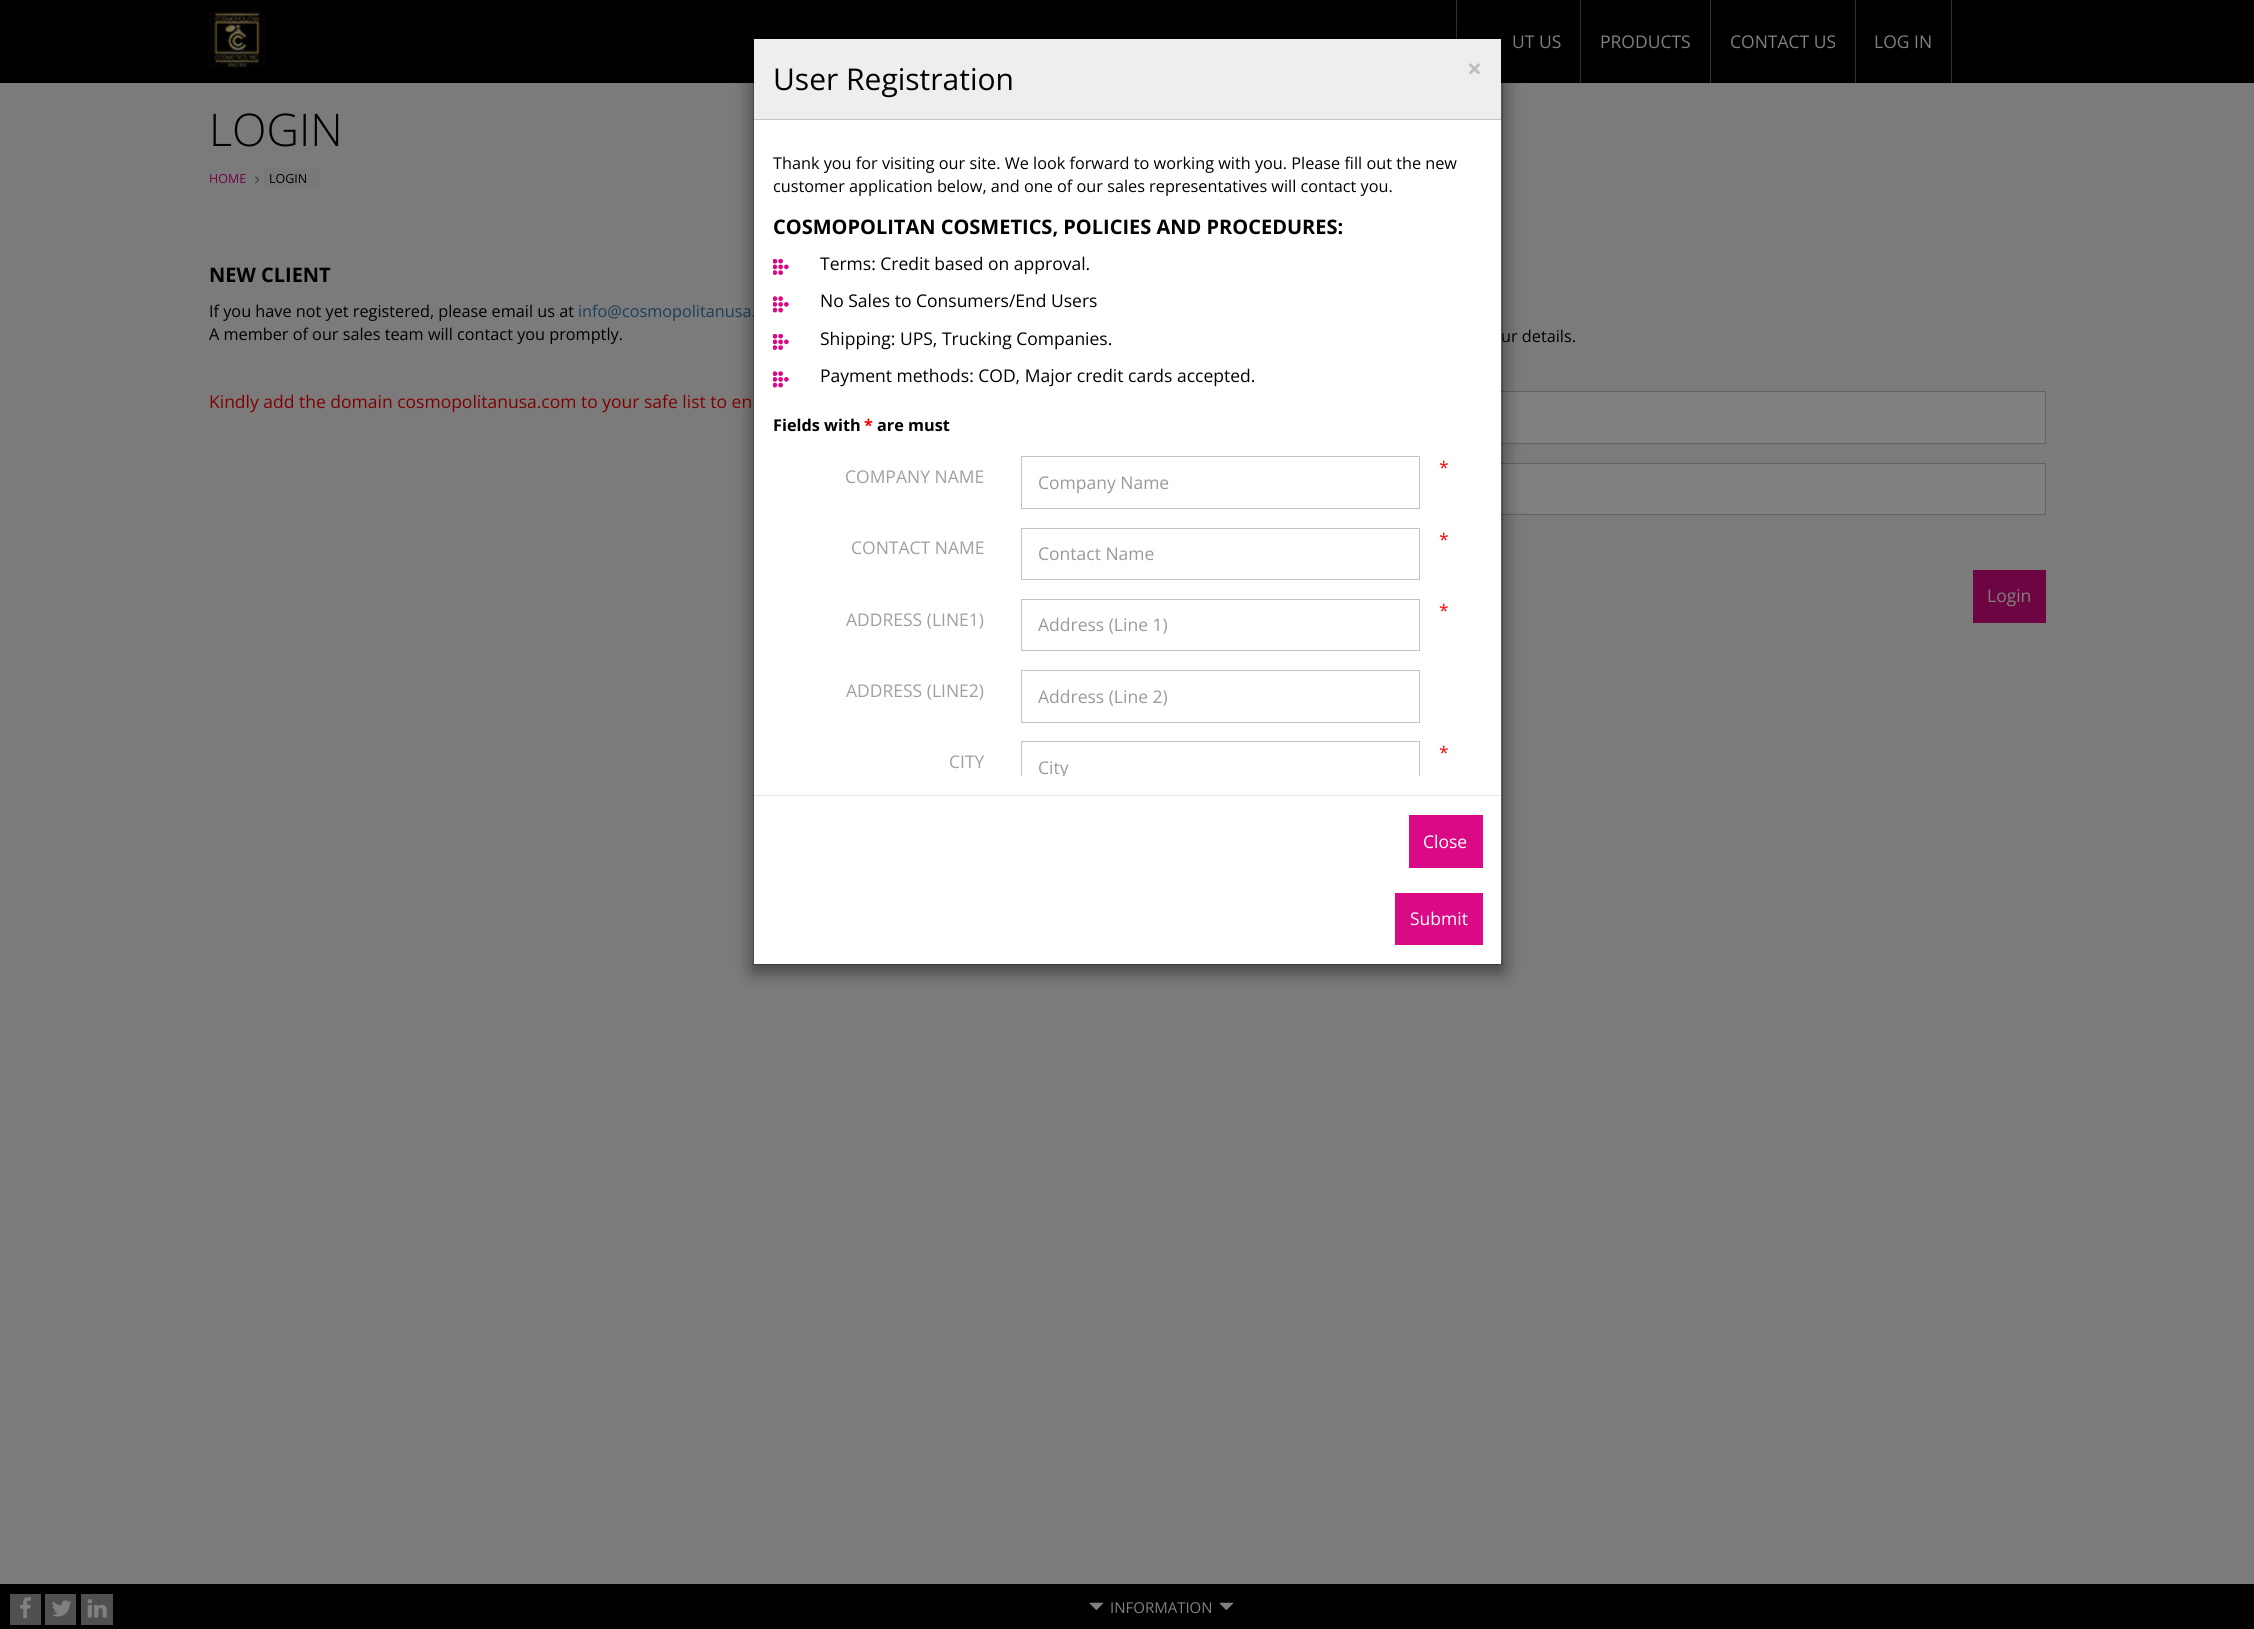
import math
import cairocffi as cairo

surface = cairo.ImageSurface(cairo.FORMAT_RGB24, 2254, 1629)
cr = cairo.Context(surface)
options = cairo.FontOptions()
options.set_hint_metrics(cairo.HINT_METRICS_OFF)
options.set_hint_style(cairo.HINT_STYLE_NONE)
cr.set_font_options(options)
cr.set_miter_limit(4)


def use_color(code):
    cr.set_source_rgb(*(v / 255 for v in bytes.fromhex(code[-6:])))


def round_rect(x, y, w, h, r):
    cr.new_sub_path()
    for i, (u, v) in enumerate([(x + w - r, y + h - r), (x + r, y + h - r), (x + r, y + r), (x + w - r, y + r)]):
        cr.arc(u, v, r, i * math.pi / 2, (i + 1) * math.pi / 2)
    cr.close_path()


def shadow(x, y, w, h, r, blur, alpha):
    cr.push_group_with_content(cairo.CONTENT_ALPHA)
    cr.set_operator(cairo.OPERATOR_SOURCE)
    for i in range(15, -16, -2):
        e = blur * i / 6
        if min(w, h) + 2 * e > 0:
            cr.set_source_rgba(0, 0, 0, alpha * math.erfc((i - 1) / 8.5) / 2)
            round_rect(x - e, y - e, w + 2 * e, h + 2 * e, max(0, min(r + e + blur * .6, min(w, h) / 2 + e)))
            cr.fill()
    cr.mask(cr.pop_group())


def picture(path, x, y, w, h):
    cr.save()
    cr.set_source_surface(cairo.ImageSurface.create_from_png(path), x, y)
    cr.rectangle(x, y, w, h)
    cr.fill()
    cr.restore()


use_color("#7b7b7b")
cr.paint()
use_color("#000000")
cr.rectangle(0, 0, 2254, 83)
cr.fill()
picture("img1.png", 208, 12, 57, 56)
use_color("#303030")
cr.rectangle(1456, 0, 1, 39)
cr.fill()
cr.rectangle(1580, 0, 1, 83)
cr.fill()
cr.select_font_face("Open Sans")
cr.set_font_size(17.5)
use_color("#808080")
cr.move_to(1512, 48)
cr.show_text("UT US")
use_color("#303030")
cr.rectangle(1710, 0, 1, 83)
cr.fill()
use_color("#808080")
cr.move_to(1600, 48)
cr.show_text("PRODUCTS")
use_color("#303030")
cr.rectangle(1855, 0, 1, 83)
cr.fill()
use_color("#808080")
cr.move_to(1730, 48)
cr.show_text("CONTACT US")
use_color("#303030")
cr.rectangle(1951, 0, 1, 83)
cr.fill()
use_color("#808080")
cr.move_to(1874, 48)
cr.show_text("LOG IN")
cr.select_font_face("Open Sans", cairo.FONT_SLANT_NORMAL, cairo.FONT_WEIGHT_BOLD)
cr.set_font_size(20)
use_color("#000000")
cr.move_to(209, 282)
cr.show_text("NEW CLIENT")
cr.select_font_face("Open Sans")
cr.set_font_size(16.25)
cr.move_to(209, 317)
cr.show_text("If you have not yet registered, please email us at")
use_color("#1a3d5c")
cr.move_to(578, 317)
cr.show_text("info@cosmopolitanusa.")
use_color("#000000")
cr.move_to(209, 340)
cr.show_text("A member of our sales team will contact you promptly.")
cr.set_font_size(17.5)
use_color("#800000")
cr.move_to(209, 408)
cr.show_text("Kindly add the domain cosmopolitanusa.com to your safe list to en")
use_color("#808080")
cr.rectangle(1501, 392, 544, 51)
cr.fill()
cr.rectangle(1146.5, 391.5, 899, 52)
use_color("#626262")
cr.set_line_width(1)
cr.stroke()
use_color("#808080")
cr.rectangle(1501, 464, 544, 50)
cr.fill()
cr.rectangle(1146.5, 463.5, 899, 51)
use_color("#626262")
cr.stroke()
use_color("#000000")
shadow(753, 44, 750, 927, 0, 9.5, 0.5)
use_color("#ffffff")
cr.rectangle(754, 120, 747, 844)
cr.fill()
cr.set_font_size(16.25)
use_color("#000000")
cr.move_to(1501, 342)
cr.show_text("ur details.")
cr.rectangle(753.5, 38.5, 749, 926)
cr.set_source_rgba(0, 0, 0, 0.2)
cr.stroke()
use_color("#eeeeee")
cr.rectangle(754, 39, 747, 80)
cr.fill()
use_color("#c4c4c4")
cr.rectangle(754, 119, 747, 1)
cr.fill()
cr.set_font_size(30)
use_color("#000000")
cr.move_to(773, 90)
cr.show_text("User Registration")
cr.select_font_face("Open Sans", cairo.FONT_SLANT_NORMAL, cairo.FONT_WEIGHT_BOLD)
cr.set_font_size(26)
use_color("#bebebe")
cr.move_to(1467, 78)
cr.show_text("×")
cr.select_font_face("Open Sans")
cr.set_font_size(16.25)
use_color("#000000")
cr.move_to(773, 169)
cr.show_text("Thank you for visiting our site. We look forward to working with you. Please fill out the new")
cr.move_to(773, 192)
cr.show_text("customer application below, and one of our sales representatives will contact you.")
cr.select_font_face("Open Sans", cairo.FONT_SLANT_NORMAL, cairo.FONT_WEIGHT_BOLD)
cr.set_font_size(20)
cr.move_to(773, 234)
cr.show_text("COSMOPOLITAN COSMETICS, POLICIES AND PROCEDURES:")
picture("img2.png", 773, 259, 16, 16)
cr.select_font_face("Open Sans")
cr.set_font_size(17.5)
cr.move_to(820, 270)
cr.show_text("Terms: Credit based on approval.")
picture("img3.png", 773, 296, 16, 17)
cr.move_to(820, 307)
cr.show_text("No Sales to Consumers/End Users")
picture("img2.png", 773, 334, 16, 16)
cr.move_to(820, 345)
cr.show_text("Shipping: UPS, Trucking Companies.")
picture("img3.png", 773, 371, 16, 17)
cr.move_to(820, 382)
cr.show_text("Payment methods: COD, Major credit cards accepted.")
cr.select_font_face("Open Sans", cairo.FONT_SLANT_NORMAL, cairo.FONT_WEIGHT_BOLD)
cr.set_font_size(16.25)
cr.move_to(773, 431)
cr.show_text("Fields with")
use_color("#ff0000")
cr.move_to(864, 431)
cr.show_text("*")
use_color("#000000")
cr.move_to(877, 431)
cr.show_text("are must")
cr.select_font_face("Open Sans")
cr.set_font_size(17.5)
use_color("#ff0000")
cr.move_to(1439, 474)
cr.show_text("*")
use_color("#9f9f9f")
cr.move_to(845, 483)
cr.show_text("COMPANY NAME")
cr.rectangle(1021.5, 456.5, 398, 52)
use_color("#c3c3c3")
cr.stroke()
use_color("#999999")
cr.move_to(1038, 489)
cr.show_text("Company Name")
use_color("#ff0000")
cr.move_to(1439, 546)
cr.show_text("*")
use_color("#9f9f9f")
cr.move_to(851, 554)
cr.show_text("CONTACT NAME")
cr.rectangle(1021.5, 528.5, 398, 51)
use_color("#c3c3c3")
cr.stroke()
use_color("#999999")
cr.move_to(1038, 560)
cr.show_text("Contact Name")
use_color("#ff0000")
cr.move_to(1439, 617)
cr.show_text("*")
use_color("#9f9f9f")
cr.move_to(846, 626)
cr.show_text("ADDRESS (LINE1)")
cr.rectangle(1021.5, 599.5, 398, 51)
use_color("#c3c3c3")
cr.stroke()
use_color("#999999")
cr.move_to(1038, 631)
cr.show_text("Address (Line 1)")
use_color("#9f9f9f")
cr.move_to(846, 697)
cr.show_text("ADDRESS (LINE2)")
cr.rectangle(1021.5, 670.5, 398, 52)
use_color("#c3c3c3")
cr.stroke()
use_color("#999999")
cr.move_to(1038, 703)
cr.show_text("Address (Line 2)")
use_color("#ff0000")
cr.move_to(1439, 759)
cr.show_text("*")
use_color("#9f9f9f")
cr.move_to(949, 768)
cr.show_text("CITY")
cr.save()
cr.rectangle(773, 151, 710, 625)
cr.clip()
cr.rectangle(1021.5, 741.5, 398, 52)
use_color("#c3c3c3")
cr.stroke()
cr.restore()
cr.save()
cr.rectangle(1038, 755, 366, 21)
cr.clip()
use_color("#999999")
cr.move_to(1038, 774)
cr.show_text("City")
cr.restore()
use_color("#e5e5e5")
cr.rectangle(754, 795, 747, 1)
cr.fill()
use_color("#da0a86")
cr.rectangle(1409, 815, 74, 53)
cr.fill()
use_color("#ffffff")
cr.move_to(1423, 848)
cr.show_text("Close")
use_color("#da0a86")
cr.rectangle(1395, 893, 88, 52)
cr.fill()
use_color("#ffffff")
cr.move_to(1410, 925)
cr.show_text("Submit")
use_color("#6d0543")
cr.rectangle(1973, 570, 73, 53)
cr.fill()
use_color("#808080")
cr.move_to(1987, 602)
cr.show_text("Login")
cr.select_font_face("Open Sans Light")
cr.set_font_size(45)
use_color("#000000")
cr.move_to(209, 146)
cr.show_text("LOGIN")
cr.select_font_face("Open Sans")
cr.set_font_size(12.5)
use_color("#6d0543")
cr.move_to(209, 183)
cr.show_text("HOME")
picture("img4.png", 255, 176, 5, 8)
use_color("#787878")
cr.rectangle(264, 168, 56, 22)
cr.fill()
use_color("#000000")
cr.move_to(269, 183)
cr.show_text("LOGIN")
cr.rectangle(0, 1584, 2254, 45)
cr.fill()
use_color("#505050")
cr.rectangle(10, 1594, 31, 31)
cr.fill()
picture("img5.png", 19, 1597, 12, 22)
cr.rectangle(45, 1594, 31, 31)
cr.fill()
picture("img6.png", 52, 1600, 20, 17)
cr.rectangle(81, 1594, 32, 31)
cr.fill()
picture("img7.png", 87, 1599, 20, 19)
picture("img8.png", 1089, 1602, 15, 8)
cr.set_font_size(15)
use_color("#808080")
cr.move_to(1110, 1613)
cr.show_text("INFORMATION")
picture("img8.png", 1219, 1602, 15, 8)
surface.write_to_png("result.png")
